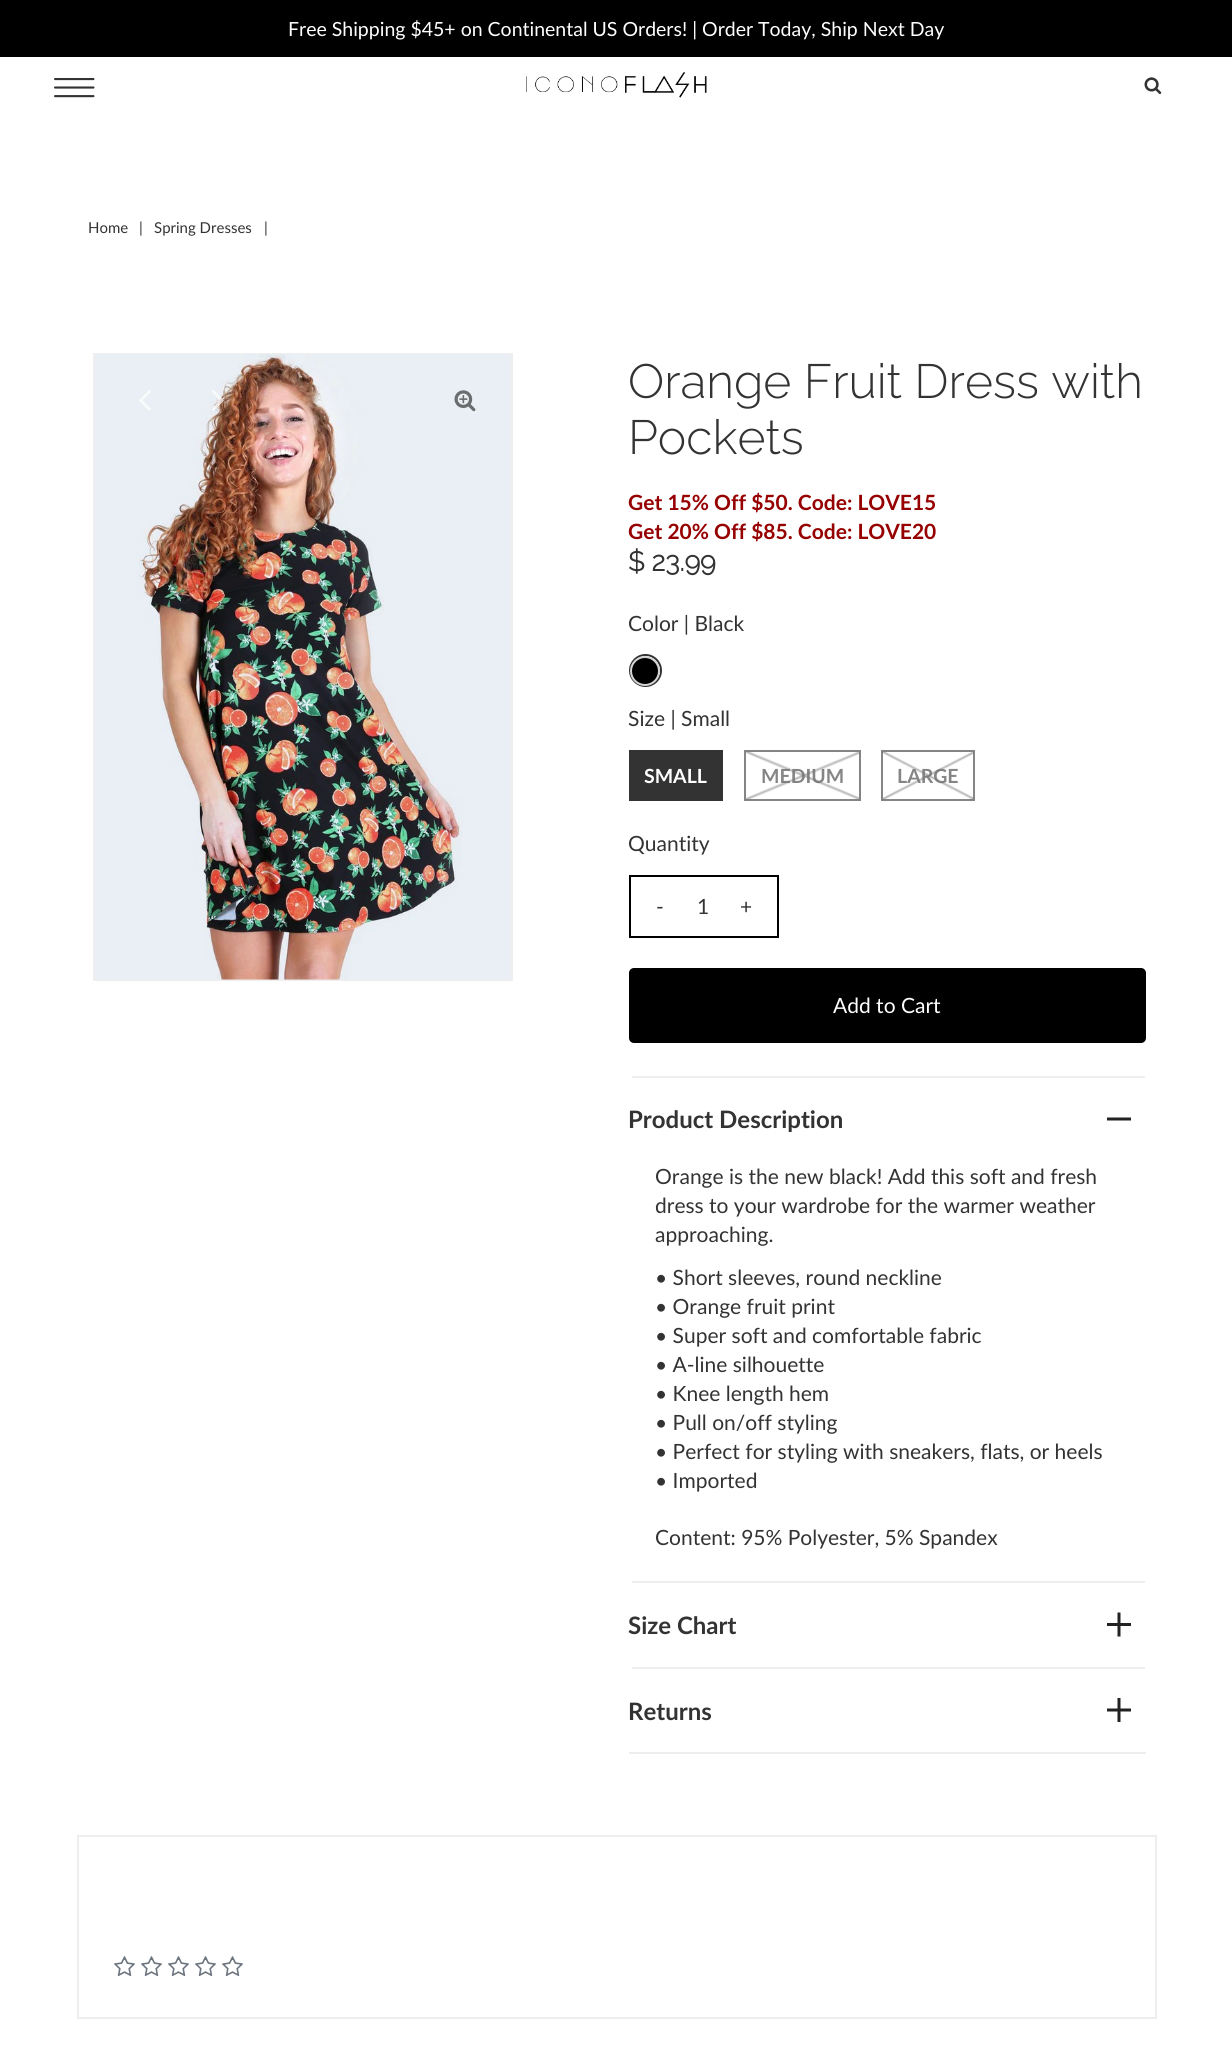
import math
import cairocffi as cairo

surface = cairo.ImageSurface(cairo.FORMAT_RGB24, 1232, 2061)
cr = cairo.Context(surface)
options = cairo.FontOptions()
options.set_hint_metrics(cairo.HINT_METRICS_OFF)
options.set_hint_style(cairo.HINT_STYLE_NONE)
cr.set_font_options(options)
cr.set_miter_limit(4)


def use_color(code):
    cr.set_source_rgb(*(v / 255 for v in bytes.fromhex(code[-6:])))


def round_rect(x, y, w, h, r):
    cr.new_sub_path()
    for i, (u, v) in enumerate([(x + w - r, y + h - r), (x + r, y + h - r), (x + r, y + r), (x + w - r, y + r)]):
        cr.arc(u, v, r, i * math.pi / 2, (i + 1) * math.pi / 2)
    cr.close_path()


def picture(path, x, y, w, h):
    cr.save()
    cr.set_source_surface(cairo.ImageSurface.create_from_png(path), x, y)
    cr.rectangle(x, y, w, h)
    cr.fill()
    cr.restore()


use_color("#ffffff")
cr.paint()
use_color("#000000")
cr.rectangle(0, 0, 1232, 57)
cr.fill()
cr.select_font_face("Lato")
cr.set_font_size(19.5)
use_color("#ffffff")
cr.move_to(288, 36)
cr.show_text("Free Shipping $45+ on Continental US Orders! | Order Today, Ship Next Day")
picture("img1.png", 54, 78, 41, 20)
picture("img2.png", 526, 72, 181, 26)
picture("img3.png", 1144, 77, 18, 17)
cr.set_font_size(15)
use_color("#333333")
cr.move_to(88, 233)
cr.show_text("Home")
cr.move_to(139, 233)
cr.show_text("|")
cr.move_to(154, 233)
cr.show_text("Spring Dresses")
cr.move_to(264, 233)
cr.show_text("|")
cr.rectangle(94, 354, 418, 626)
use_color("#eeeeee")
cr.stroke()
picture("img4.png", 95, 354, 416, 626)
picture("img5.png", 454, 390, 22, 22)
picture("img6.png", 139, 390, 12, 21)
picture("img7.png", 212, 390, 12, 21)
cr.select_font_face("Raleway Light")
cr.set_font_size(48)
use_color("#333333")
cr.move_to(628, 398)
cr.show_text("Orange Fruit Dress with")
cr.move_to(628, 454)
cr.show_text("Pockets")
cr.select_font_face("Lato", cairo.FONT_SLANT_NORMAL, cairo.FONT_WEIGHT_BOLD)
cr.set_font_size(21)
use_color("#960000")
cr.move_to(628, 510)
cr.show_text("Get 15% Off $50. Code: LOVE15")
cr.move_to(628, 539)
cr.show_text("Get 20% Off $85. Code: LOVE20")
cr.select_font_face("Raleway", cairo.FONT_SLANT_NORMAL, cairo.FONT_WEIGHT_BOLD)
cr.set_font_size(27)
use_color("#333333")
cr.move_to(628, 571)
cr.show_text("$ 23.99")
cr.select_font_face("Lato")
cr.set_font_size(21)
cr.move_to(628, 631)
cr.show_text("Color | Black")
cr.new_path()
cr.arc(645.5, 670.5, 15.5, 0, 2 * math.pi)
cr.stroke()
use_color("#000000")
cr.arc(645, 671, 14, 0, 2 * math.pi)
cr.fill_preserve()
use_color("#d5d5d5")
cr.stroke()
use_color("#333333")
cr.move_to(628, 726)
cr.show_text("Size | Small")
cr.rectangle(629, 750, 94, 51)
cr.fill()
cr.select_font_face("Lato", cairo.FONT_SLANT_NORMAL, cairo.FONT_WEIGHT_BOLD)
cr.set_font_size(19.5)
use_color("#ffffff")
cr.move_to(644, 783)
cr.show_text("SMALL")
cr.rectangle(745, 751, 115, 49)
use_color("#858585")
cr.stroke()
cr.move_to(761, 783)
cr.show_text("MEDIUM")
picture("img8.png", 746, 751, 114, 49)
cr.rectangle(882, 751, 92, 49)
cr.stroke()
cr.move_to(897, 783)
cr.show_text("LARGE")
picture("img9.png", 882, 751, 92, 49)
cr.select_font_face("Lato")
cr.set_font_size(21)
use_color("#333333")
cr.move_to(628, 851)
cr.show_text("Quantity")
cr.rectangle(630, 876, 148, 61)
use_color("#000000")
cr.stroke()
use_color("#333333")
cr.move_to(656, 914)
cr.show_text("-")
cr.move_to(697, 914)
cr.show_text("1")
cr.move_to(740, 914)
cr.show_text("+")
use_color("#000000")
round_rect(629, 968, 517, 75, 5)
cr.fill()
use_color("#ffffff")
cr.move_to(833, 1013)
cr.show_text("Add to Cart")
use_color("#eeeeee")
cr.rectangle(629, 1752, 517, 2)
cr.fill()
cr.rectangle(632, 1076, 513, 2)
cr.fill()
cr.select_font_face("Lato", cairo.FONT_SLANT_NORMAL, cairo.FONT_WEIGHT_BOLD)
cr.set_font_size(24)
use_color("#333333")
cr.move_to(628, 1128)
cr.show_text("Product Description")
cr.new_path()
cr.move_to(1131, 1119)
cr.line_to(1107, 1119)
use_color("#222222")
cr.set_line_width(3)
cr.stroke()
cr.select_font_face("Lato")
cr.set_font_size(21)
use_color("#333333")
cr.move_to(655, 1184)
cr.show_text("Orange is the new black! Add this soft and fresh")
cr.move_to(655, 1213)
cr.show_text("dress to your wardrobe for the warmer weather")
cr.move_to(655, 1242)
cr.show_text("approaching.")
cr.move_to(655, 1285)
cr.show_text("• Short sleeves, round neckline")
cr.move_to(655, 1314)
cr.show_text("• Orange fruit print")
cr.move_to(655, 1343)
cr.show_text("• Super soft and comfortable fabric")
cr.move_to(655, 1372)
cr.show_text("• A-line silhouette")
cr.move_to(655, 1401)
cr.show_text("• Knee length hem")
cr.move_to(655, 1430)
cr.show_text("• Pull on/off styling")
cr.move_to(655, 1459)
cr.show_text("• Perfect for styling with sneakers, flats, or heels")
cr.move_to(655, 1488)
cr.show_text("• Imported")
cr.move_to(655, 1545)
cr.show_text("Content: 95% Polyester, 5% Spandex")
use_color("#eeeeee")
cr.rectangle(632, 1581, 513, 2)
cr.fill()
cr.select_font_face("Lato", cairo.FONT_SLANT_NORMAL, cairo.FONT_WEIGHT_BOLD)
cr.set_font_size(24)
use_color("#333333")
cr.move_to(628, 1634)
cr.show_text("Size Chart")
cr.new_path()
cr.move_to(1119, 1612.5)
cr.line_to(1119, 1636.5)
use_color("#222222")
cr.stroke()
cr.rectangle(1107, 1623, 24, 3)
cr.fill()
use_color("#eeeeee")
cr.rectangle(632, 1667, 513, 2)
cr.fill()
use_color("#333333")
cr.move_to(628, 1720)
cr.show_text("Returns")
cr.new_path()
cr.move_to(1119, 1698)
cr.line_to(1119, 1722)
cr.move_to(1131, 1710)
cr.line_to(1107, 1710)
use_color("#222222")
cr.stroke()
cr.rectangle(78, 1836, 1078, 182)
use_color("#eeeeee")
cr.set_line_width(2)
cr.stroke()
picture("img10.png", 114, 1956, 21, 21)
picture("img10.png", 141, 1956, 21, 21)
picture("img10.png", 168, 1956, 21, 21)
picture("img10.png", 195, 1956, 21, 21)
picture("img10.png", 222, 1956, 21, 21)
surface.write_to_png("result.png")
